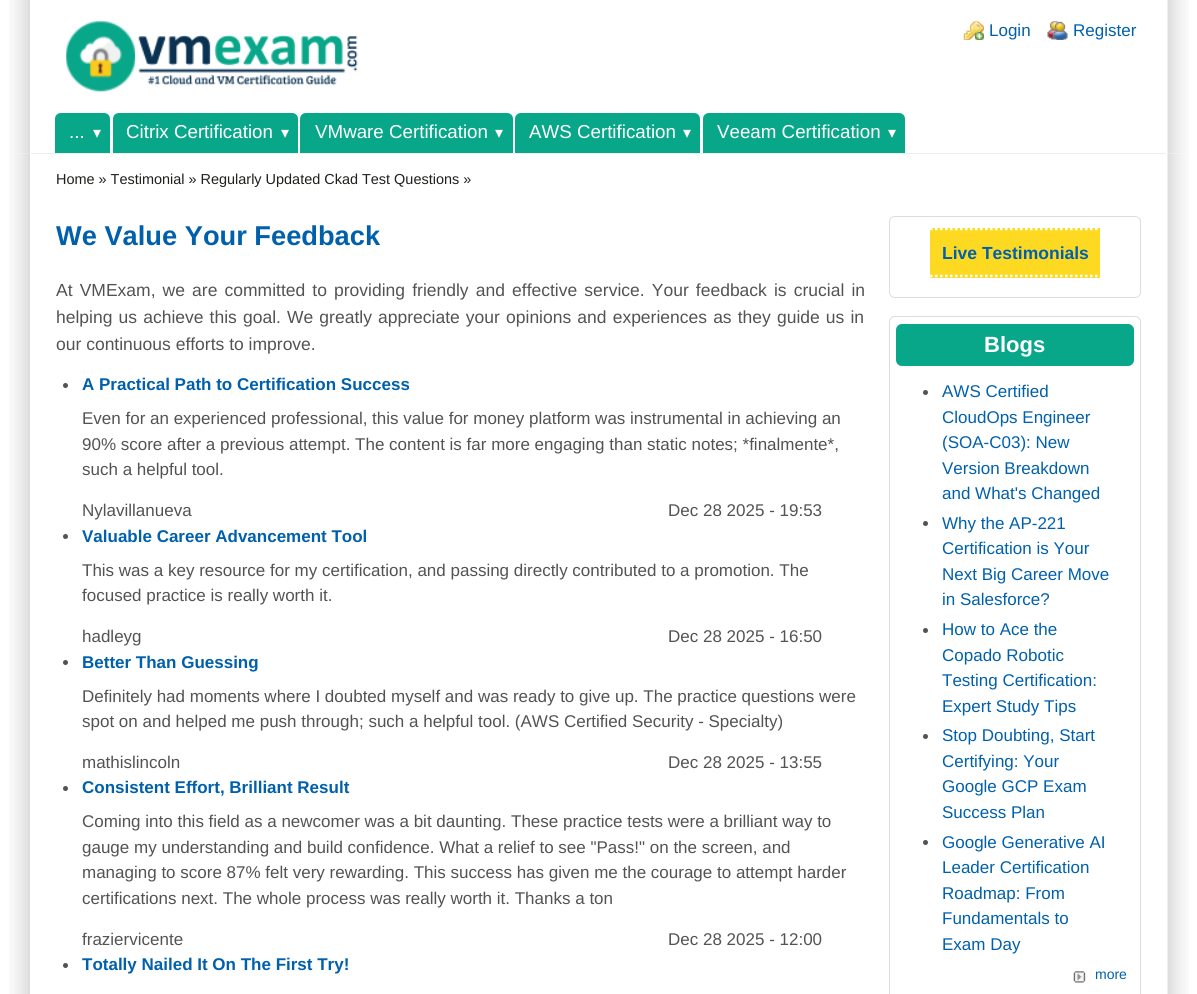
import math
import cairocffi as cairo

surface = cairo.ImageSurface(cairo.FORMAT_RGB24, 1197, 994)
cr = cairo.Context(surface)
options = cairo.FontOptions()
options.set_hint_metrics(cairo.HINT_METRICS_OFF)
options.set_hint_style(cairo.HINT_STYLE_NONE)
cr.set_font_options(options)
cr.set_miter_limit(4)


def use_color(code):
    cr.set_source_rgb(*(v / 255 for v in bytes.fromhex(code[-6:])))


def spaced_text(x, y, s, letter, word):
    cr.move_to(x, y)
    for ch in s:
        cr.show_text(ch)
        cr.rel_move_to(letter + word * (ch == ' '), 0)


def round_rect(x, y, w, h, r):
    cr.new_sub_path()
    for i, (u, v) in enumerate([(x + w - r, y + h - r), (x + r, y + h - r), (x + r, y + r), (x + w - r, y + r)]):
        cr.arc(u, v, r, i * math.pi / 2, (i + 1) * math.pi / 2)
    cr.close_path()


def picture(path, x, y, w, h):
    cr.save()
    cr.set_source_surface(cairo.ImageSurface.create_from_png(path), x, y)
    cr.rectangle(x, y, w, h)
    cr.fill()
    cr.restore()


use_color("#ffffff")
cr.paint()
picture("img1.png", 9, 0, 21, 154)
picture("img2.png", 1167, 0, 22, 154)
use_color("#eeeeee")
cr.rectangle(31, 153, 1135, 1)
cr.fill()
picture("img3.png", 66, 21, 292, 71)
picture("img4.png", 963, 21, 21, 19)
cr.select_font_face("Liberation Sans")
cr.set_font_size(17)
use_color("#0060ac")
cr.move_to(989, 36)
cr.show_text("Login")
picture("img5.png", 1047, 21, 21, 19)
cr.move_to(1073, 36)
cr.show_text("Register")
use_color("#09a78a")
cr.new_path()
cr.move_to(61, 113)
cr.line_to(104, 113)
cr.curve_to(107.5, 113, 110, 115.5, 110, 119)
cr.line_to(110, 153)
cr.line_to(55, 153)
cr.line_to(55, 119)
cr.curve_to(55, 115.5, 57.5, 113, 61, 113)
cr.close_path()
cr.fill()
cr.set_font_size(18.75)
use_color("#ffffff")
cr.move_to(69, 138)
cr.show_text("...")
cr.select_font_face("DejaVu Sans")
cr.set_font_size(16)
cr.move_to(93, 138)
cr.show_text("▾")
use_color("#09a78a")
cr.new_path()
cr.move_to(119, 113)
cr.line_to(292, 113)
cr.curve_to(295.5, 113, 298, 115.5, 298, 119)
cr.line_to(298, 153)
cr.line_to(113, 153)
cr.line_to(113, 119)
cr.curve_to(113, 115.5, 115.5, 113, 119, 113)
cr.close_path()
cr.fill()
cr.select_font_face("Liberation Sans")
cr.set_font_size(18.75)
use_color("#ffffff")
cr.move_to(126, 138)
cr.show_text("Citrix Certification")
cr.select_font_face("DejaVu Sans")
cr.set_font_size(16)
cr.move_to(281, 138)
cr.show_text("▾")
use_color("#09a78a")
cr.new_path()
cr.move_to(306, 113)
cr.line_to(507, 113)
cr.curve_to(510.5, 113, 513, 115.5, 513, 119)
cr.line_to(513, 153)
cr.line_to(300, 153)
cr.line_to(300, 119)
cr.curve_to(300, 115.5, 302.5, 113, 306, 113)
cr.close_path()
cr.fill()
cr.select_font_face("Liberation Sans")
cr.set_font_size(18.75)
use_color("#ffffff")
cr.move_to(315, 138)
cr.show_text("VMware Certification")
cr.select_font_face("DejaVu Sans")
cr.set_font_size(16)
cr.move_to(495, 138)
cr.show_text("▾")
use_color("#09a78a")
cr.new_path()
cr.move_to(521, 113)
cr.line_to(694, 113)
cr.curve_to(697.5, 113, 700, 115.5, 700, 119)
cr.line_to(700, 153)
cr.line_to(515, 153)
cr.line_to(515, 119)
cr.curve_to(515, 115.5, 517.5, 113, 521, 113)
cr.close_path()
cr.fill()
cr.select_font_face("Liberation Sans")
cr.set_font_size(18.75)
use_color("#ffffff")
cr.move_to(529, 138)
cr.show_text("AWS Certification")
cr.select_font_face("DejaVu Sans")
cr.set_font_size(16)
cr.move_to(683, 138)
cr.show_text("▾")
use_color("#09a78a")
cr.new_path()
cr.move_to(709, 113)
cr.line_to(899, 113)
cr.curve_to(902.5, 113, 905, 115.5, 905, 119)
cr.line_to(905, 153)
cr.line_to(703, 153)
cr.line_to(703, 119)
cr.curve_to(703, 115.5, 705.5, 113, 709, 113)
cr.close_path()
cr.fill()
cr.select_font_face("Liberation Sans")
cr.set_font_size(18.75)
use_color("#ffffff")
cr.move_to(717, 138)
cr.show_text("Veeam Certification")
cr.select_font_face("DejaVu Sans")
cr.set_font_size(16)
cr.move_to(888, 138)
cr.show_text("▾")
picture("img6.png", 9, 154, 21, 840)
picture("img7.png", 1167, 154, 22, 840)
cr.select_font_face("Liberation Sans")
cr.set_font_size(14.45)
use_color("#1e201b")
cr.move_to(56, 184)
cr.show_text("Home » Testimonial » Regularly Updated Ckad Test Questions »")
cr.select_font_face("Liberation Sans", cairo.FONT_SLANT_NORMAL, cairo.FONT_WEIGHT_BOLD)
cr.set_font_size(27.25)
use_color("#0060ac")
cr.move_to(56, 245)
cr.show_text("We Value Your Feedback")
cr.select_font_face("Liberation Sans")
cr.set_font_size(17.5)
use_color("#535353")
spaced_text(56, 296, "At VMExam, we are committed to providing friendly and effective service. Your feedback is crucial in", 0, 2.25)
spaced_text(56, 323, "helping us achieve this goal. We greatly appreciate your opinions and experiences as they guide us in", 0, 1.25)
cr.move_to(56, 350)
cr.show_text("our continuous efforts to improve.")
cr.new_path()
cr.arc(65.5, 385.5, 2.5, 0, 2 * math.pi)
cr.fill()
cr.select_font_face("Liberation Sans", cairo.FONT_SLANT_NORMAL, cairo.FONT_WEIGHT_BOLD)
cr.set_font_size(17)
use_color("#0060ac")
cr.move_to(82, 390)
cr.show_text("A Practical Path to Certification Success")
cr.select_font_face("Liberation Sans")
use_color("#535353")
cr.move_to(82, 424)
cr.show_text("Even for an experienced professional, this value for money platform was instrumental in achieving an")
cr.move_to(82, 450)
cr.show_text("90% score after a previous attempt. The content is far more engaging than static notes; *finalmente*,")
cr.move_to(82, 475)
cr.show_text("such a helpful tool.")
cr.move_to(82, 516)
cr.show_text("Nylavillanueva")
cr.move_to(668, 516)
cr.show_text("Dec 28 2025 - 19:53")
cr.new_path()
cr.arc(65.5, 536.5, 2.5, 0, 2 * math.pi)
cr.fill()
cr.select_font_face("Liberation Sans", cairo.FONT_SLANT_NORMAL, cairo.FONT_WEIGHT_BOLD)
use_color("#0060ac")
cr.move_to(82, 542)
cr.show_text("Valuable Career Advancement Tool")
cr.select_font_face("Liberation Sans")
use_color("#535353")
cr.move_to(82, 576)
cr.show_text("This was a key resource for my certification, and passing directly contributed to a promotion. The")
cr.move_to(82, 601)
cr.show_text("focused practice is really worth it.")
cr.move_to(82, 642)
cr.show_text("hadleyg")
cr.move_to(668, 642)
cr.show_text("Dec 28 2025 - 16:50")
cr.new_path()
cr.arc(65.5, 662.5, 2.5, 0, 2 * math.pi)
cr.fill()
cr.select_font_face("Liberation Sans", cairo.FONT_SLANT_NORMAL, cairo.FONT_WEIGHT_BOLD)
use_color("#0060ac")
cr.move_to(82, 668)
cr.show_text("Better Than Guessing")
cr.select_font_face("Liberation Sans")
use_color("#535353")
cr.move_to(82, 702)
cr.show_text("Definitely had moments where I doubted myself and was ready to give up. The practice questions were")
cr.move_to(82, 727)
cr.show_text("spot on and helped me push through; such a helpful tool. (AWS Certified Security - Specialty)")
cr.move_to(82, 768)
cr.show_text("mathislincoln")
cr.move_to(668, 768)
cr.show_text("Dec 28 2025 - 13:55")
cr.new_path()
cr.arc(65.5, 788.5, 2.5, 0, 2 * math.pi)
cr.fill()
cr.select_font_face("Liberation Sans", cairo.FONT_SLANT_NORMAL, cairo.FONT_WEIGHT_BOLD)
use_color("#0060ac")
cr.move_to(82, 793)
cr.show_text("Consistent Effort, Brilliant Result")
cr.select_font_face("Liberation Sans")
use_color("#535353")
cr.move_to(82, 827)
cr.show_text("Coming into this field as a newcomer was a bit daunting. These practice tests were a brilliant way to")
cr.move_to(82, 853)
cr.show_text("gauge my understanding and build confidence. What a relief to see \"Pass!\" on the screen, and")
cr.move_to(82, 878)
cr.show_text("managing to score 87% felt very rewarding. This success has given me the courage to attempt harder")
cr.move_to(82, 904)
cr.show_text("certifications next. The whole process was really worth it. Thanks a ton")
cr.move_to(82, 945)
cr.show_text("fraziervicente")
cr.move_to(668, 945)
cr.show_text("Dec 28 2025 - 12:00")
cr.new_path()
cr.arc(65.5, 965.5, 2.5, 0, 2 * math.pi)
cr.fill()
cr.select_font_face("Liberation Sans", cairo.FONT_SLANT_NORMAL, cairo.FONT_WEIGHT_BOLD)
use_color("#0060ac")
cr.move_to(82, 970)
cr.show_text("Totally Nailed It On The First Try!")
round_rect(889.5, 216.5, 251, 81, 5.5)
use_color("#dddddd")
cr.set_line_width(1)
cr.stroke()
use_color("#fdd922")
cr.rectangle(930, 228, 170, 50)
cr.fill()
cr.set_font_size(17.5)
use_color("#0060ac")
cr.move_to(942, 259)
cr.show_text("Live Testimonials")
cr.new_path()
cr.move_to(930, 229)
cr.line_to(1100, 229)
use_color("#ffffff")
cr.set_line_width(2.5)
cr.set_dash([2.5, 2.5])
cr.stroke()
cr.new_path()
cr.move_to(930, 276)
cr.line_to(1100, 276)
cr.stroke()
round_rect(889.5, 316.5, 251, 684, 5.5)
use_color("#dddddd")
cr.set_line_width(1)
cr.set_dash([])
cr.stroke()
use_color("#09a78a")
round_rect(896, 324, 238, 42, 6)
cr.fill()
cr.set_font_size(22)
use_color("#ffffff")
cr.move_to(984, 352)
cr.show_text("Blogs")
use_color("#535353")
cr.new_path()
cr.arc(925.5, 392.5, 2.5, 0, 2 * math.pi)
cr.fill()
cr.select_font_face("Liberation Sans")
cr.set_font_size(17)
use_color("#0060ac")
cr.move_to(942, 397)
cr.show_text("AWS Certified")
cr.move_to(942, 423)
cr.show_text("CloudOps Engineer")
cr.move_to(942, 448)
cr.show_text("(SOA-C03): New")
cr.move_to(942, 474)
cr.show_text("Version Breakdown")
cr.move_to(942, 499)
cr.show_text("and What's Changed")
use_color("#535353")
cr.new_path()
cr.arc(925.5, 523.5, 2.5, 0, 2 * math.pi)
cr.fill()
use_color("#0060ac")
cr.move_to(942, 529)
cr.show_text("Why the AP-221")
cr.move_to(942, 554)
cr.show_text("Certification is Your")
cr.move_to(942, 580)
cr.show_text("Next Big Career Move")
cr.move_to(942, 605)
cr.show_text("in Salesforce?")
use_color("#535353")
cr.new_path()
cr.arc(925.5, 630.5, 2.5, 0, 2 * math.pi)
cr.fill()
use_color("#0060ac")
cr.move_to(942, 635)
cr.show_text("How to Ace the")
cr.move_to(942, 661)
cr.show_text("Copado Robotic")
cr.move_to(942, 686)
cr.show_text("Testing Certification:")
cr.move_to(942, 712)
cr.show_text("Expert Study Tips")
use_color("#535353")
cr.new_path()
cr.arc(925.5, 736.5, 2.5, 0, 2 * math.pi)
cr.fill()
use_color("#0060ac")
cr.move_to(942, 741)
cr.show_text("Stop Doubting, Start")
cr.move_to(942, 767)
cr.show_text("Certifying: Your")
cr.move_to(942, 792)
cr.show_text("Google GCP Exam")
cr.move_to(942, 818)
cr.show_text("Success Plan")
use_color("#535353")
cr.new_path()
cr.arc(925.5, 842.5, 2.5, 0, 2 * math.pi)
cr.fill()
use_color("#0060ac")
cr.move_to(942, 848)
cr.show_text("Google Generative AI")
cr.move_to(942, 873)
cr.show_text("Leader Certification")
cr.move_to(942, 899)
cr.show_text("Roadmap: From")
cr.move_to(942, 924)
cr.show_text("Fundamentals to")
cr.move_to(942, 950)
cr.show_text("Exam Day")
picture("img8.png", 1073, 971, 13, 12)
cr.set_font_size(14)
cr.move_to(1095, 979)
cr.show_text("more")
surface.write_to_png("result.png")
